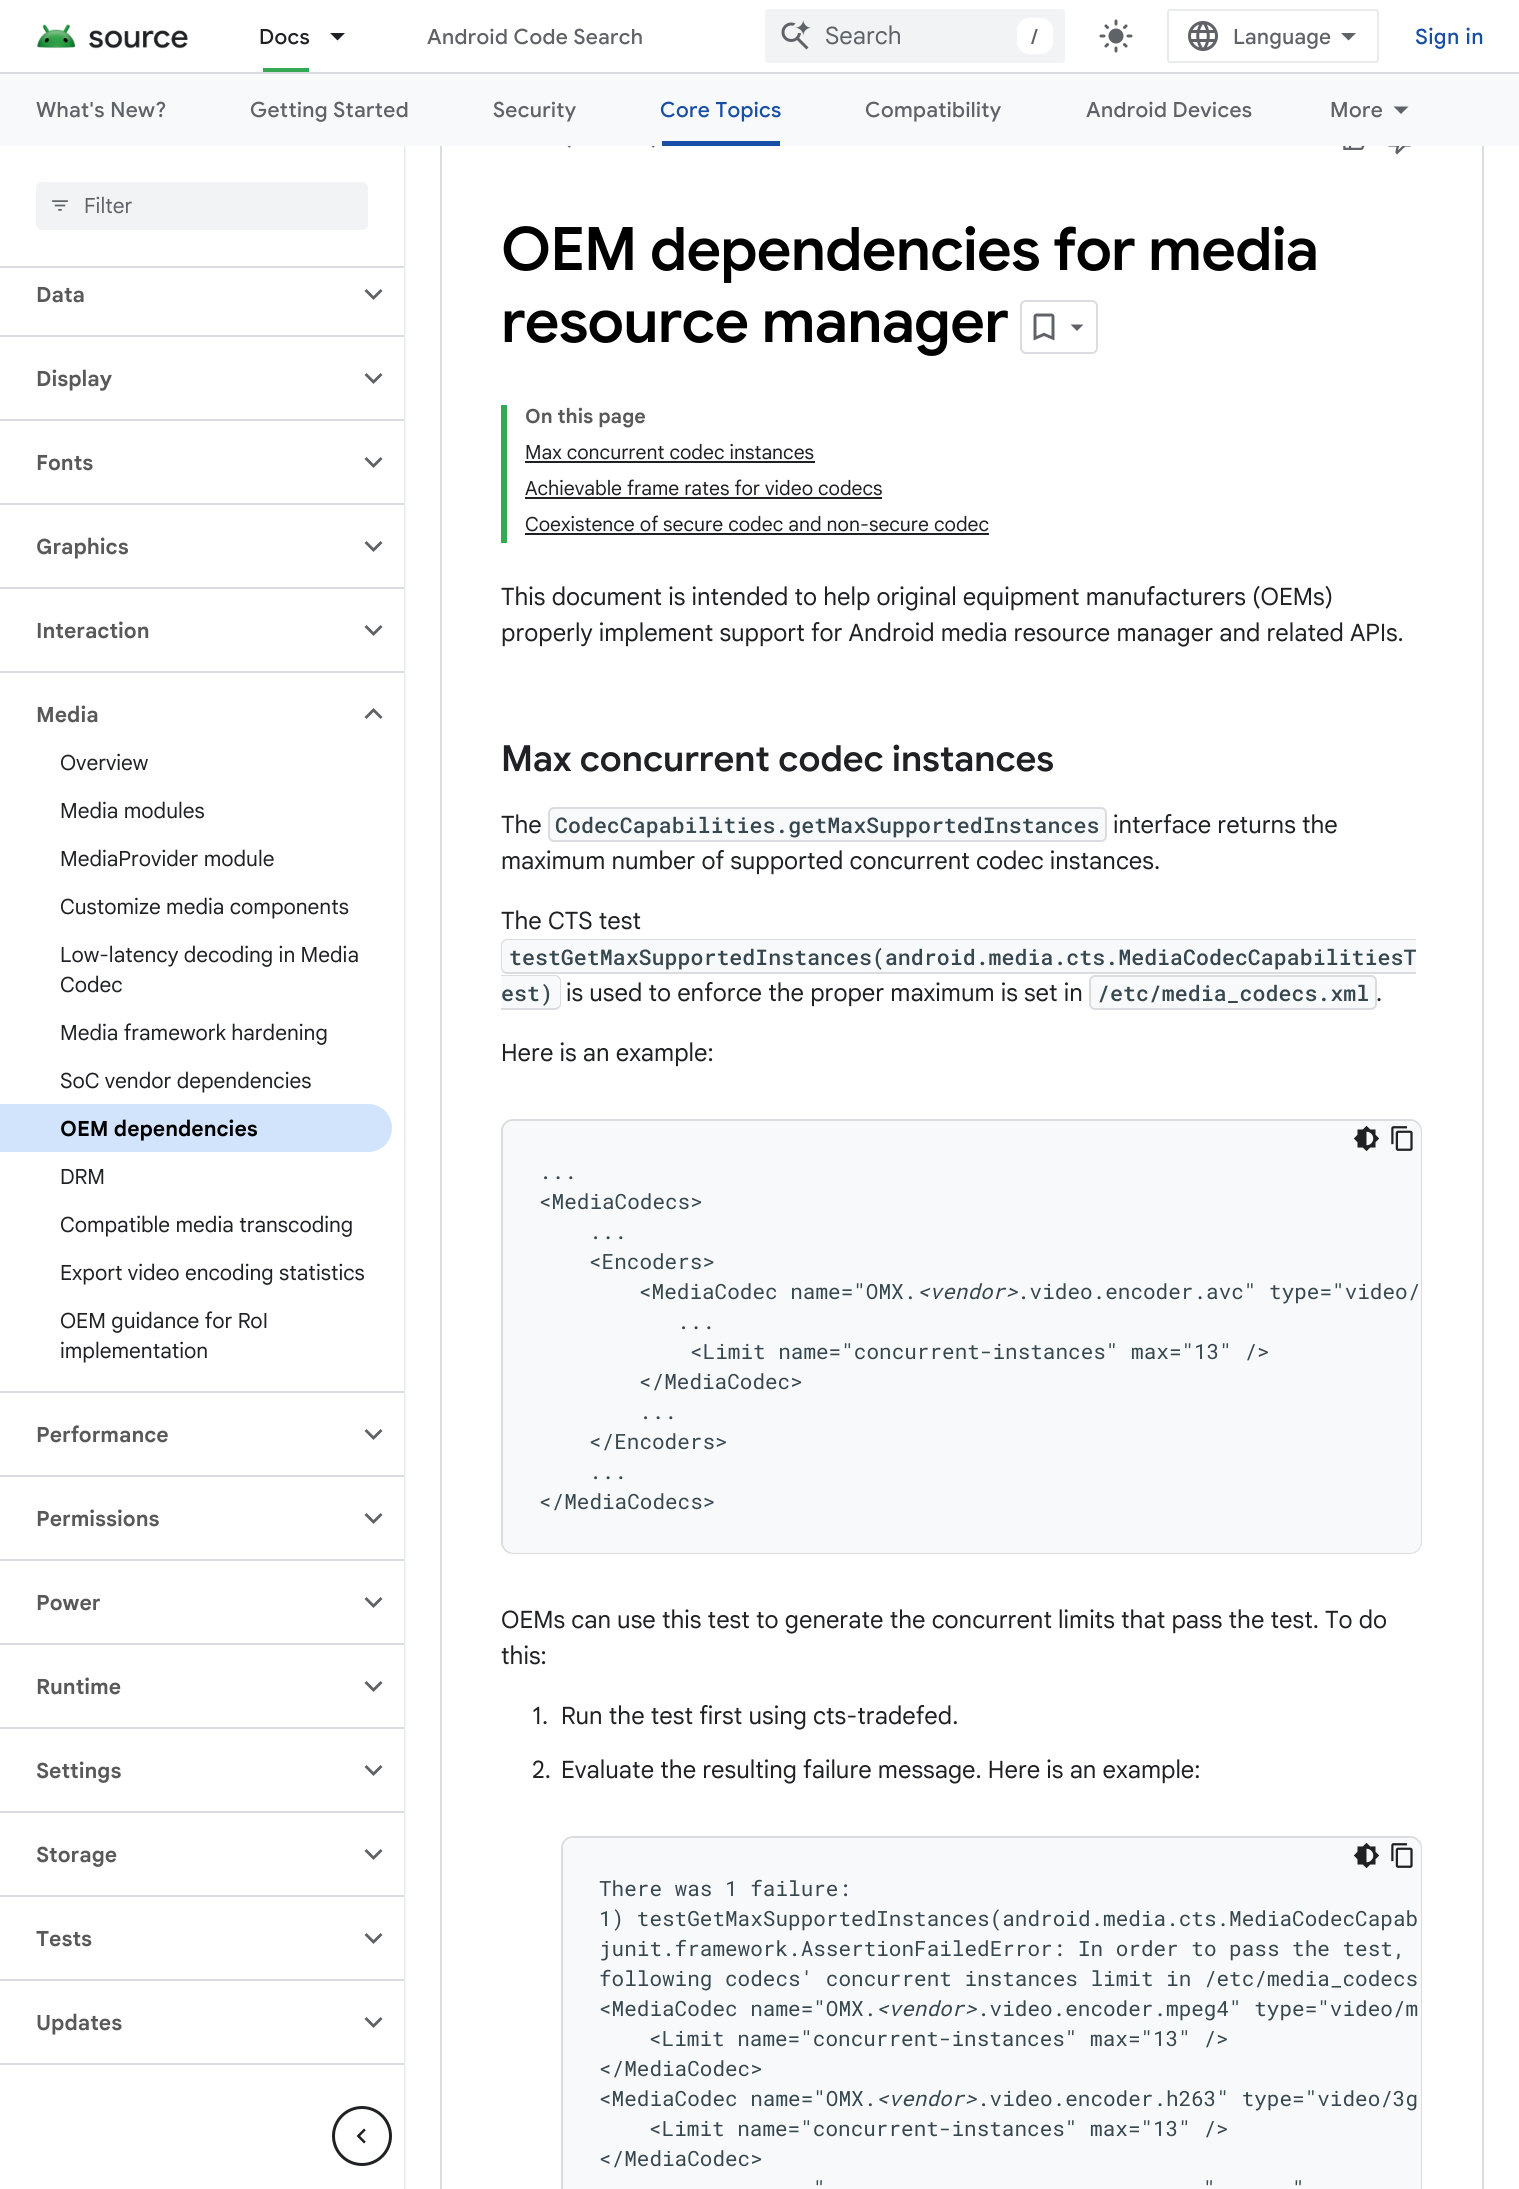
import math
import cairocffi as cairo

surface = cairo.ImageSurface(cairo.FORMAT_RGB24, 1519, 2189)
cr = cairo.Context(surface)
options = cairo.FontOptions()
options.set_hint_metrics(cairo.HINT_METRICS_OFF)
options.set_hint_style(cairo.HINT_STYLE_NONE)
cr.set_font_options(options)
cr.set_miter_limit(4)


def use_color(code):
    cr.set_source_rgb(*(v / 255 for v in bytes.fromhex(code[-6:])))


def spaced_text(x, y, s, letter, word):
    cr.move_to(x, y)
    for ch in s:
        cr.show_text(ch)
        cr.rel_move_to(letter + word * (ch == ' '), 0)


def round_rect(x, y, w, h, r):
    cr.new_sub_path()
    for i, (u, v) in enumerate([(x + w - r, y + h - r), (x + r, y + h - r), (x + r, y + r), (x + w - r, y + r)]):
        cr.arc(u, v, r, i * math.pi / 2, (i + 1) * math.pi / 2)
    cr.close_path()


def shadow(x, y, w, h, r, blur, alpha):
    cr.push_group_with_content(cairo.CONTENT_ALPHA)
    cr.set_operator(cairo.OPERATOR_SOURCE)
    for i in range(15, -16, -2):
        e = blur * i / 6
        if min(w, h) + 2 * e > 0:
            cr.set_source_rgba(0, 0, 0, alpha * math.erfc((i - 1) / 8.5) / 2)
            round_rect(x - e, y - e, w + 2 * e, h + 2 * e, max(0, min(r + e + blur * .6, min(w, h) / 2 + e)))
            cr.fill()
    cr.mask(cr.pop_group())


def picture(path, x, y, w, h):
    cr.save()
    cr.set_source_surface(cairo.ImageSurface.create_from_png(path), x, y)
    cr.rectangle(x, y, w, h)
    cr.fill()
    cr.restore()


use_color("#ffffff")
cr.paint()
use_color("#bdc1c6")
shadow(0, 2, 404, 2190, 0, 1.5, 1)
use_color("#ffffff")
cr.rectangle(0, 268, 404, 1921)
cr.fill()
cr.rectangle(441, -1, 1042, 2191)
use_color("#dadce0")
cr.stroke()
use_color("#ffffff")
cr.rectangle(0, 0, 1484, 72)
cr.fill()
use_color("#dadce0")
cr.rectangle(0, 72, 1519, 2)
cr.fill()
picture("img1.png", 37, 24, 151, 25)
cr.select_font_face("Google Sans Medium")
cr.set_font_size(21)
use_color("#202124")
spaced_text(259, 44, "Docs", 0.4, 0)
use_color("#34a853")
cr.rectangle(263, 68, 46, 4)
cr.fill()
use_color("#202124")
cr.new_path()
cr.move_to(330, 33)
cr.line_to(345, 33)
cr.line_to(337.5, 40.5)
cr.close_path()
cr.fill()
use_color("#5f6368")
spaced_text(427, 44, "Android Code Search", 0.4, 0)
use_color("#f1f3f4")
round_rect(765, 9, 300, 54, 3)
cr.fill()
picture("img2.png", 781, 20, 30, 30)
cr.select_font_face("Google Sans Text")
cr.set_font_size(24)
use_color("#5f6368")
cr.move_to(825, 44)
cr.show_text("Search")
use_color("#ffffff")
round_rect(1017, 18, 36, 36, 12)
cr.fill()
cr.select_font_face("Google Sans Medium")
cr.set_font_size(21)
use_color("#5f6368")
cr.move_to(1031, 44)
cr.show_text("/")
picture("img3.png", 1099, 19, 34, 34)
round_rect(1168, 10, 210, 52, 2)
use_color("#e8eaed")
cr.stroke()
picture("img4.png", 1188, 21, 30, 30)
cr.select_font_face("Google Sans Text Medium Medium")
use_color("#5f6368")
cr.move_to(1233, 44)
cr.show_text("Language")
cr.new_path()
cr.move_to(1348.5, 40.5)
cr.line_to(1341, 33)
cr.line_to(1356, 33)
cr.close_path()
cr.fill()
use_color("#174ea6")
spaced_text(1415, 44, "Sign in", 0.4, 0)
use_color("#f8f9fa")
cr.rectangle(0, 74, 1519, 72)
cr.fill()
cr.select_font_face("Google Sans Medium")
use_color("#5f6368")
spaced_text(36, 117, "What's New?", 0.4, 0)
spaced_text(250, 117, "Getting Started", 0.4, 0)
spaced_text(493, 117, "Security", 0.4, 0)
use_color("#174ea6")
spaced_text(660, 117, "Core Topics", 0.4, 0)
cr.rectangle(662, 141, 118, 5)
cr.fill()
use_color("#5f6368")
spaced_text(865, 117, "Compatibility", 0.4, 0)
spaced_text(1086, 117, "Android Devices", 0.4, 0)
spaced_text(1330, 117, "More", 0.4, 0)
cr.new_path()
cr.move_to(1393.5, 106.5)
cr.line_to(1408.5, 106.5)
cr.line_to(1401, 114)
cr.close_path()
cr.fill()
use_color("#ffffff")
cr.rectangle(0, 146, 404, 120)
cr.fill()
use_color("#dadce0")
cr.rectangle(0, 266, 404, 2)
cr.fill()
use_color("#f1f3f4")
round_rect(36, 182, 332, 48, 6)
cr.fill()
picture("img5.png", 52, 200, 16, 11)
cr.select_font_face("Google Sans Text")
use_color("#5f6368")
cr.move_to(84, 213)
cr.show_text("Filter")
use_color("#dadce0")
cr.rectangle(0, 335, 404, 2)
cr.fill()
cr.select_font_face("Google Sans Text", cairo.FONT_SLANT_NORMAL, cairo.FONT_WEIGHT_BOLD)
use_color("#595959")
cr.move_to(36, 302)
cr.show_text("Data")
use_color("#5f6368")
cr.new_path()
cr.move_to(373.5, 300)
cr.line_to(382.5, 291)
cr.line_to(380.5, 289)
cr.line_to(373.5, 296)
cr.line_to(366.5, 289)
cr.line_to(364.5, 291)
cr.close_path()
cr.fill()
use_color("#dadce0")
cr.rectangle(0, 419, 404, 2)
cr.fill()
use_color("#595959")
cr.move_to(36, 386)
cr.show_text("Display")
use_color("#5f6368")
cr.new_path()
cr.move_to(373.5, 384)
cr.line_to(382.5, 375)
cr.line_to(380.5, 373)
cr.line_to(373.5, 380)
cr.line_to(366.5, 373)
cr.line_to(364.5, 375)
cr.close_path()
cr.fill()
use_color("#dadce0")
cr.rectangle(0, 503, 404, 2)
cr.fill()
use_color("#595959")
cr.move_to(36, 470)
cr.show_text("Fonts")
use_color("#5f6368")
cr.new_path()
cr.move_to(373.5, 468)
cr.line_to(382.5, 459)
cr.line_to(380.5, 457)
cr.line_to(373.5, 464)
cr.line_to(366.5, 457)
cr.line_to(364.5, 459)
cr.close_path()
cr.fill()
use_color("#dadce0")
cr.rectangle(0, 587, 404, 2)
cr.fill()
use_color("#595959")
cr.move_to(36, 554)
cr.show_text("Graphics")
use_color("#5f6368")
cr.new_path()
cr.move_to(373.5, 552)
cr.line_to(382.5, 543)
cr.line_to(380.5, 541)
cr.line_to(373.5, 548)
cr.line_to(366.5, 541)
cr.line_to(364.5, 543)
cr.close_path()
cr.fill()
use_color("#dadce0")
cr.rectangle(0, 671, 404, 2)
cr.fill()
use_color("#595959")
cr.move_to(36, 638)
cr.show_text("Interaction")
use_color("#5f6368")
cr.new_path()
cr.move_to(373.5, 636)
cr.line_to(382.5, 627)
cr.line_to(380.5, 625)
cr.line_to(373.5, 632)
cr.line_to(366.5, 625)
cr.line_to(364.5, 627)
cr.close_path()
cr.fill()
use_color("#dadce0")
cr.rectangle(0, 1391, 404, 2)
cr.fill()
use_color("#595959")
cr.move_to(36, 722)
cr.show_text("Media")
use_color("#5f6368")
cr.new_path()
cr.move_to(373.5, 708)
cr.line_to(382.5, 717)
cr.line_to(380.5, 719)
cr.line_to(373.5, 712)
cr.line_to(366.5, 719)
cr.line_to(364.5, 717)
cr.close_path()
cr.fill()
cr.select_font_face("Google Sans Text")
use_color("#202124")
cr.move_to(60, 770)
cr.show_text("Overview")
cr.move_to(60, 818)
cr.show_text("Media modules")
cr.move_to(60, 866)
cr.show_text("MediaProvider module")
cr.move_to(60, 914)
cr.show_text("Customize media components")
cr.move_to(60, 962)
cr.show_text("Low-latency decoding in Media")
cr.move_to(60, 992)
cr.show_text("Codec")
cr.move_to(60, 1040)
cr.show_text("Media framework hardening")
cr.move_to(60, 1088)
cr.show_text("SoC vendor dependencies")
use_color("#d2e3fc")
cr.new_path()
cr.move_to(0, 1104)
cr.line_to(368, 1104)
cr.curve_to(381.5, 1104, 392, 1114.5, 392, 1128)
cr.curve_to(392, 1141.5, 381.5, 1152, 368, 1152)
cr.line_to(0, 1152)
cr.close_path()
cr.fill()
cr.select_font_face("Google Sans Text", cairo.FONT_SLANT_NORMAL, cairo.FONT_WEIGHT_BOLD)
use_color("#000000")
cr.move_to(60, 1136)
cr.show_text("OEM dependencies")
cr.select_font_face("Google Sans Text")
use_color("#202124")
cr.move_to(60, 1184)
cr.show_text("DRM")
cr.move_to(60, 1232)
cr.show_text("Compatible media transcoding")
cr.move_to(60, 1280)
cr.show_text("Export video encoding statistics")
cr.move_to(60, 1328)
cr.show_text("OEM guidance for RoI")
cr.move_to(60, 1358)
cr.show_text("implementation")
use_color("#dadce0")
cr.rectangle(0, 1475, 404, 2)
cr.fill()
cr.select_font_face("Google Sans Text", cairo.FONT_SLANT_NORMAL, cairo.FONT_WEIGHT_BOLD)
use_color("#595959")
cr.move_to(36, 1442)
cr.show_text("Performance")
use_color("#5f6368")
cr.new_path()
cr.move_to(373.5, 1440)
cr.line_to(382.5, 1431)
cr.line_to(380.5, 1429)
cr.line_to(373.5, 1436)
cr.line_to(366.5, 1429)
cr.line_to(364.5, 1431)
cr.close_path()
cr.fill()
use_color("#dadce0")
cr.rectangle(0, 1559, 404, 2)
cr.fill()
use_color("#595959")
cr.move_to(36, 1526)
cr.show_text("Permissions")
use_color("#5f6368")
cr.new_path()
cr.move_to(373.5, 1524)
cr.line_to(382.5, 1515)
cr.line_to(380.5, 1513)
cr.line_to(373.5, 1520)
cr.line_to(366.5, 1513)
cr.line_to(364.5, 1515)
cr.close_path()
cr.fill()
use_color("#dadce0")
cr.rectangle(0, 1643, 404, 2)
cr.fill()
use_color("#595959")
cr.move_to(36, 1610)
cr.show_text("Power")
use_color("#5f6368")
cr.new_path()
cr.move_to(373.5, 1608)
cr.line_to(382.5, 1599)
cr.line_to(380.5, 1597)
cr.line_to(373.5, 1604)
cr.line_to(366.5, 1597)
cr.line_to(364.5, 1599)
cr.close_path()
cr.fill()
use_color("#dadce0")
cr.rectangle(0, 1727, 404, 2)
cr.fill()
use_color("#595959")
cr.move_to(36, 1694)
cr.show_text("Runtime")
use_color("#5f6368")
cr.new_path()
cr.move_to(373.5, 1692)
cr.line_to(382.5, 1683)
cr.line_to(380.5, 1681)
cr.line_to(373.5, 1688)
cr.line_to(366.5, 1681)
cr.line_to(364.5, 1683)
cr.close_path()
cr.fill()
use_color("#dadce0")
cr.rectangle(0, 1811, 404, 2)
cr.fill()
use_color("#595959")
cr.move_to(36, 1778)
cr.show_text("Settings")
use_color("#5f6368")
cr.new_path()
cr.move_to(373.5, 1776)
cr.line_to(382.5, 1767)
cr.line_to(380.5, 1765)
cr.line_to(373.5, 1772)
cr.line_to(366.5, 1765)
cr.line_to(364.5, 1767)
cr.close_path()
cr.fill()
use_color("#dadce0")
cr.rectangle(0, 1895, 404, 2)
cr.fill()
use_color("#595959")
cr.move_to(36, 1862)
cr.show_text("Storage")
use_color("#5f6368")
cr.new_path()
cr.move_to(373.5, 1860)
cr.line_to(382.5, 1851)
cr.line_to(380.5, 1849)
cr.line_to(373.5, 1856)
cr.line_to(366.5, 1849)
cr.line_to(364.5, 1851)
cr.close_path()
cr.fill()
use_color("#dadce0")
cr.rectangle(0, 1979, 404, 2)
cr.fill()
use_color("#595959")
cr.move_to(36, 1946)
cr.show_text("Tests")
use_color("#5f6368")
cr.new_path()
cr.move_to(373.5, 1944)
cr.line_to(382.5, 1935)
cr.line_to(380.5, 1933)
cr.line_to(373.5, 1940)
cr.line_to(366.5, 1933)
cr.line_to(364.5, 1935)
cr.close_path()
cr.fill()
use_color("#dadce0")
cr.rectangle(0, 2063, 404, 2)
cr.fill()
use_color("#595959")
cr.move_to(36, 2030)
cr.show_text("Updates")
use_color("#5f6368")
cr.new_path()
cr.move_to(373.5, 2028)
cr.line_to(382.5, 2019)
cr.line_to(380.5, 2017)
cr.line_to(373.5, 2024)
cr.line_to(366.5, 2017)
cr.line_to(364.5, 2019)
cr.close_path()
cr.fill()
picture("img6.png", 567, 146, 4, 2)
picture("img6.png", 651, 146, 4, 2)
picture("img7.png", 1343, 146, 22, 4)
picture("img8.png", 1388, 146, 23, 9)
cr.select_font_face("Google Sans SemiBold")
cr.set_font_size(60)
use_color("#000000")
spaced_text(501, 270, "OEM dependencies for media", -0.75, 0)
spaced_text(501, 342, "resource manager", -0.75, 0)
round_rect(1021, 301, 76, 52, 5)
use_color("#dadce0")
cr.stroke()
picture("img9.png", 1033, 313, 22, 28)
use_color("#5f6368")
cr.new_path()
cr.move_to(1070.5, 324.5)
cr.line_to(1083.5, 324.5)
cr.line_to(1077, 331)
cr.close_path()
cr.fill()
use_color("#34a853")
cr.rectangle(501, 405, 6, 138)
cr.fill()
cr.select_font_face("Google Sans Text", cairo.FONT_SLANT_NORMAL, cairo.FONT_WEIGHT_BOLD)
cr.set_font_size(19.5)
use_color("#595959")
cr.move_to(525, 423)
cr.show_text("On this page")
cr.select_font_face("Google Sans Text")
use_color("#202124")
cr.move_to(525, 459)
cr.show_text("Max concurrent codec instances")
cr.rectangle(525, 461, 290, 2)
cr.fill()
cr.move_to(525, 495)
cr.show_text("Achievable frame rates for video codecs")
cr.rectangle(525, 497, 357, 2)
cr.fill()
cr.move_to(525, 531)
cr.show_text("Coexistence of secure codec and non-secure codec")
cr.rectangle(525, 533, 464, 2)
cr.fill()
cr.set_font_size(24)
cr.move_to(501, 605)
cr.show_text("This document is intended to help original equipment manufacturers (OEMs)")
cr.move_to(501, 641)
cr.show_text("properly implement support for Android media resource manager and related APIs.")
cr.select_font_face("Google Sans SemiBold")
cr.set_font_size(36)
cr.move_to(501, 771)
cr.show_text("Max concurrent codec instances")
cr.select_font_face("Google Sans Text")
cr.set_font_size(24)
cr.move_to(501, 833)
cr.show_text("The")
use_color("#f8f9fa")
round_rect(549, 808, 557, 33, 5)
cr.fill_preserve()
use_color("#dadce0")
cr.stroke()
cr.select_font_face("Roboto Mono Medium")
cr.set_font_size(21.6)
use_color("#37474f")
cr.move_to(555, 833)
cr.show_text("CodecCapabilities.getMaxSupportedInstances")
cr.select_font_face("Google Sans Text")
cr.set_font_size(24)
use_color("#202124")
cr.move_to(1113, 833)
cr.show_text("interface returns the")
cr.move_to(501, 869)
cr.show_text("maximum number of supported concurrent codec instances.")
cr.move_to(501, 929)
cr.show_text("The CTS test")
use_color("#f8f9fa")
cr.new_path()
cr.move_to(507, 939)
cr.line_to(1416, 939)
cr.line_to(1416, 974)
cr.line_to(507, 974)
cr.curve_to(503.5, 974, 501, 971.5, 501, 968)
cr.line_to(501, 945)
cr.curve_to(501, 941.5, 503.5, 939, 507, 939)
cr.close_path()
cr.fill()
use_color("#dadce0")
cr.set_fill_rule(cairo.FILL_RULE_EVEN_ODD)
cr.new_path()
cr.move_to(507, 939)
cr.line_to(1416, 939)
cr.line_to(1416, 974)
cr.line_to(507, 974)
cr.curve_to(504, 974, 501, 971, 501, 968)
cr.line_to(501, 945)
cr.curve_to(501, 942, 504, 939, 507, 939)
cr.close_path()
cr.move_to(507, 940)
cr.line_to(1416, 940)
cr.line_to(1416, 972)
cr.line_to(507, 972)
cr.curve_to(505, 972, 502, 970, 502, 968)
cr.line_to(502, 945)
cr.curve_to(502, 943, 505, 940, 507, 940)
cr.close_path()
cr.fill()
cr.select_font_face("Roboto Mono Medium")
cr.set_font_size(21.6)
use_color("#37474f")
cr.move_to(509, 965)
cr.show_text("testGetMaxSupportedInstances(android.media.cts.MediaCodecCapabilitiesT")
use_color("#f8f9fa")
cr.new_path()
cr.move_to(501, 975)
cr.line_to(555, 975)
cr.curve_to(558.5, 975, 561, 977.5, 561, 981)
cr.line_to(561, 1004)
cr.curve_to(561, 1007.5, 558.5, 1010, 555, 1010)
cr.line_to(501, 1010)
cr.close_path()
cr.fill()
use_color("#dadce0")
cr.new_path()
cr.move_to(501, 975)
cr.line_to(555, 975)
cr.curve_to(558, 975, 561, 978, 561, 981)
cr.line_to(561, 1004)
cr.curve_to(561, 1007, 558, 1010, 555, 1010)
cr.line_to(501, 1010)
cr.close_path()
cr.move_to(501, 976)
cr.line_to(555, 976)
cr.curve_to(557, 976, 560, 979, 560, 981)
cr.line_to(560, 1004)
cr.curve_to(560, 1006, 557, 1008, 555, 1008)
cr.line_to(501, 1008)
cr.close_path()
cr.fill()
use_color("#37474f")
cr.move_to(501, 1001)
cr.show_text("est)")
cr.select_font_face("Google Sans Text")
cr.set_font_size(24)
use_color("#202124")
cr.move_to(566, 1001)
cr.show_text("is used to enforce the proper maximum is set in")
use_color("#f8f9fa")
round_rect(1090, 976, 286, 33, 5)
cr.fill_preserve()
use_color("#dadce0")
cr.stroke()
cr.select_font_face("Roboto Mono Medium")
cr.set_font_size(21.6)
use_color("#37474f")
cr.move_to(1097, 1001)
cr.show_text("/etc/media_codecs.xml")
cr.select_font_face("Google Sans Text")
cr.set_font_size(24)
use_color("#202124")
cr.move_to(1376, 1001)
cr.show_text(".")
cr.move_to(501, 1061)
cr.show_text("Here is an example:")
round_rect(502, 1120, 919, 433, 11)
use_color("#dadce0")
cr.stroke()
use_color("#f8f9fa")
round_rect(503, 1121, 918, 432, 11)
cr.fill()
picture("img10.png", 1353, 1125, 27, 27)
picture("img11.png", 1391, 1126, 22, 25)
cr.select_font_face("Roboto Mono")
cr.set_font_size(21)
use_color("#37474f")
cr.move_to(539, 1179)
cr.show_text("...")
cr.move_to(539, 1209)
cr.show_text("<MediaCodecs>")
cr.move_to(589, 1239)
cr.show_text("...")
cr.move_to(589, 1269)
cr.show_text("<Encoders>")
cr.move_to(639, 1299)
cr.show_text("<MediaCodec name=\"OMX.")
cr.select_font_face("Roboto Mono", cairo.FONT_SLANT_ITALIC)
cr.move_to(917, 1299)
cr.show_text("<vendor>")
cr.select_font_face("Roboto Mono")
cr.move_to(1017, 1299)
cr.show_text(".video.encoder.avc\" type=\"video/")
cr.move_to(677, 1329)
cr.show_text("...")
cr.move_to(690, 1359)
cr.show_text("<Limit name=\"concurrent-instances\" max=\"13\" />")
cr.move_to(639, 1389)
cr.show_text("</MediaCodec>")
cr.move_to(639, 1419)
cr.show_text("...")
cr.move_to(589, 1449)
cr.show_text("</Encoders>")
cr.move_to(589, 1479)
cr.show_text("...")
cr.move_to(539, 1509)
cr.show_text("</MediaCodecs>")
cr.select_font_face("Google Sans Text")
cr.set_font_size(24)
use_color("#202124")
cr.move_to(501, 1628)
cr.show_text("OEMs can use this test to generate the concurrent limits that pass the test. To do")
cr.move_to(501, 1664)
cr.show_text("this:")
cr.move_to(532, 1724)
cr.show_text("1.")
cr.move_to(561, 1724)
cr.show_text("Run the test first using cts-tradefed.")
cr.move_to(532, 1778)
cr.show_text("2.")
cr.move_to(561, 1778)
cr.show_text("Evaluate the resulting failure message. Here is an example:")
round_rect(562, 1837, 859, 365, 11)
use_color("#dadce0")
cr.stroke()
use_color("#f8f9fa")
round_rect(563, 1838, 858, 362, 11)
cr.fill()
picture("img10.png", 1353, 1842, 27, 27)
picture("img11.png", 1391, 1843, 22, 25)
cr.select_font_face("Roboto Mono")
cr.set_font_size(21)
use_color("#37474f")
cr.move_to(599, 1896)
cr.show_text("There was 1 failure:")
cr.move_to(599, 1926)
cr.show_text("1) testGetMaxSupportedInstances(android.media.cts.MediaCodecCapab")
cr.move_to(599, 1956)
cr.show_text("junit.framework.AssertionFailedError: In order to pass the test,")
cr.move_to(599, 1986)
cr.show_text("following codecs' concurrent instances limit in /etc/media_codecs")
cr.move_to(599, 2016)
cr.show_text("<MediaCodec name=\"OMX.")
cr.select_font_face("Roboto Mono", cairo.FONT_SLANT_ITALIC)
cr.move_to(876, 2016)
cr.show_text("<vendor>")
cr.select_font_face("Roboto Mono")
cr.move_to(977, 2016)
cr.show_text(".video.encoder.mpeg4\" type=\"video/m")
cr.move_to(649, 2046)
cr.show_text("<Limit name=\"concurrent-instances\" max=\"13\" />")
cr.move_to(599, 2076)
cr.show_text("</MediaCodec>")
cr.move_to(599, 2106)
cr.show_text("<MediaCodec name=\"OMX.")
cr.select_font_face("Roboto Mono", cairo.FONT_SLANT_ITALIC)
cr.move_to(876, 2106)
cr.show_text("<vendor>")
cr.select_font_face("Roboto Mono")
cr.move_to(977, 2106)
cr.show_text(".video.encoder.h263\" type=\"video/3g")
cr.move_to(649, 2136)
cr.show_text("<Limit name=\"concurrent-instances\" max=\"13\" />")
cr.move_to(599, 2166)
cr.show_text("</MediaCodec>")
cr.move_to(813, 2196)
cr.show_text("\"")
cr.move_to(1203, 2196)
cr.show_text("\"")
cr.move_to(1292, 2196)
cr.show_text("\"")
cr.new_path()
cr.arc(362, 2136, 28.5, 0, 2 * math.pi)
use_color("#202124")
cr.set_line_width(3)
cr.stroke()
picture("img12.png", 356, 2128, 10, 16)
surface.write_to_png("result.png")
